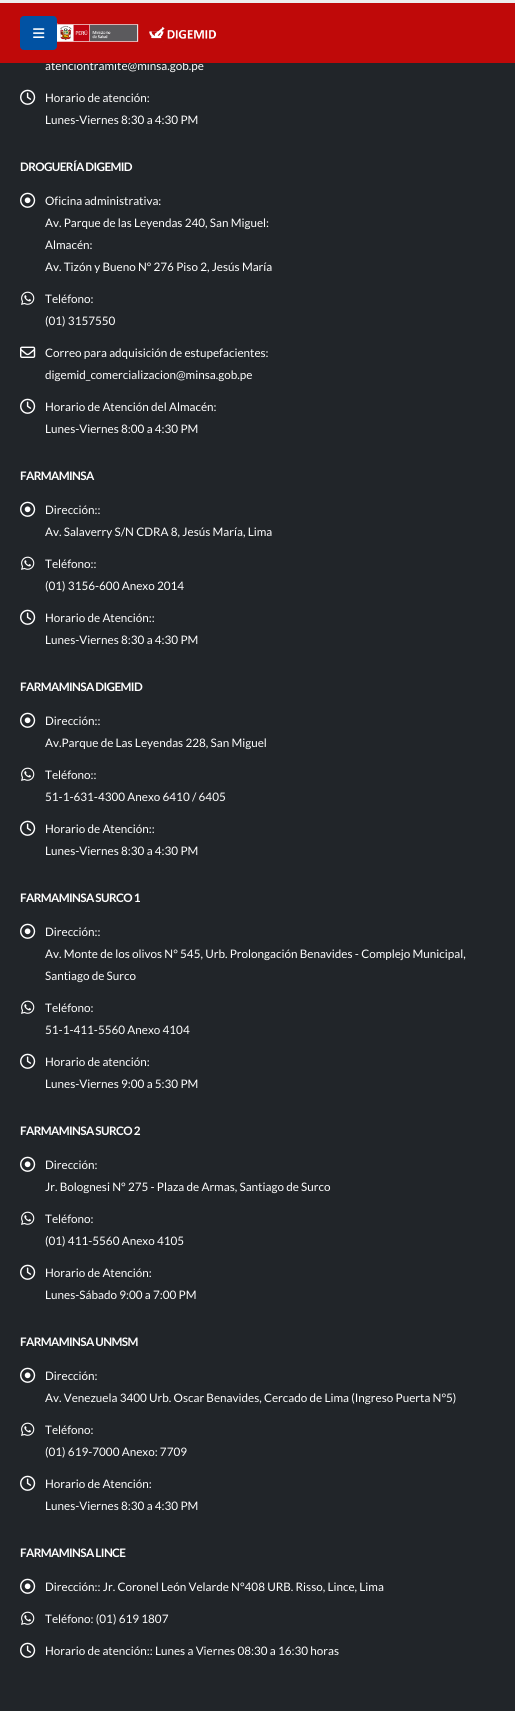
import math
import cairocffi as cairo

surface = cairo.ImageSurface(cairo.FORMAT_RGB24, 515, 1711)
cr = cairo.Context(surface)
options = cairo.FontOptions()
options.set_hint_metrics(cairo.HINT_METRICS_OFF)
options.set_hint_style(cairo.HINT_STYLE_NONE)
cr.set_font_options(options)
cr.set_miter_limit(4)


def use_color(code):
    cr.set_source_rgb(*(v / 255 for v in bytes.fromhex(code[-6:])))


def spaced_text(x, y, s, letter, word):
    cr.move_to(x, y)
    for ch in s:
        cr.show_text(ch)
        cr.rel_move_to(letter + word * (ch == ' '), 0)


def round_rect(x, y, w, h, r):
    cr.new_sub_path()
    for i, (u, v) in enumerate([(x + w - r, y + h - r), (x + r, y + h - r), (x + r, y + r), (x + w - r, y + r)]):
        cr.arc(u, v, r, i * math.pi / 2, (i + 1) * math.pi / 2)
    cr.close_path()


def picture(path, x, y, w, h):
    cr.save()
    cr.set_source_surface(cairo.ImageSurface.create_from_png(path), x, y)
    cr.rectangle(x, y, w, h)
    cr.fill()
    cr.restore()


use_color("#212529")
cr.paint()
cr.select_font_face("Lato")
cr.set_font_size(11.7)
use_color("#ffffff")
cr.move_to(45, 70)
cr.show_text("atenciontramite@minsa.gob.pe")
use_color("#bf0909")
cr.rectangle(0, 3, 515, 60)
cr.fill()
use_color("#ededed")
cr.rectangle(0, 0, 515, 3)
cr.fill()
use_color("#0152a3")
round_rect(20, 16, 37, 34, 4)
cr.fill()
picture("img1.png", 33, 28, 12, 10)
picture("img2.png", 57, 23, 160, 19)
picture("img3.png", 20, 89, 16, 16)
use_color("#ffffff")
cr.move_to(45, 102)
cr.show_text("Horario de atención:")
cr.move_to(45, 124)
cr.show_text("Lunes-Viernes 8:30 a 4:30 PM")
cr.select_font_face("Lato", cairo.FONT_SLANT_NORMAL, cairo.FONT_WEIGHT_BOLD)
spaced_text(20, 171, "DROGUERÍA DIGEMID", -0.6, 0)
picture("img4.png", 20, 192, 16, 16)
cr.select_font_face("Lato")
cr.move_to(45, 205)
cr.show_text("Oficina administrativa:")
cr.move_to(45, 227)
cr.show_text("Av. Parque de las Leyendas 240, San Miguel:")
cr.move_to(45, 249)
cr.show_text("Almacén:")
cr.move_to(45, 271)
cr.show_text("Av. Tizón y Bueno Nº 276 Piso 2, Jesús María")
picture("img5.png", 21, 291, 14, 14)
cr.move_to(45, 303)
cr.show_text("Teléfono:")
cr.move_to(45, 325)
cr.show_text("(01) 3157550")
picture("img6.png", 20, 346, 16, 12)
cr.move_to(45, 357)
cr.show_text("Correo para adquisición de estupefacientes:")
cr.move_to(45, 379)
cr.show_text("digemid_comercializacion@minsa.gob.pe")
picture("img3.png", 20, 398, 16, 16)
cr.move_to(45, 411)
cr.show_text("Horario de Atención del Almacén:")
cr.move_to(45, 433)
cr.show_text("Lunes-Viernes 8:00 a 4:30 PM")
cr.select_font_face("Lato", cairo.FONT_SLANT_NORMAL, cairo.FONT_WEIGHT_BOLD)
spaced_text(20, 480, "FARMAMINSA", -0.6, 0)
picture("img4.png", 20, 501, 16, 16)
cr.select_font_face("Lato")
cr.move_to(45, 514)
cr.show_text("Dirección::")
cr.move_to(45, 536)
cr.show_text("Av. Salaverry S/N CDRA 8, Jesús María, Lima")
picture("img5.png", 21, 556, 14, 14)
cr.move_to(45, 568)
cr.show_text("Teléfono::")
cr.move_to(45, 590)
cr.show_text("(01) 3156-600 Anexo 2014")
picture("img3.png", 20, 609, 16, 16)
cr.move_to(45, 622)
cr.show_text("Horario de Atención::")
cr.move_to(45, 644)
cr.show_text("Lunes-Viernes 8:30 a 4:30 PM")
cr.select_font_face("Lato", cairo.FONT_SLANT_NORMAL, cairo.FONT_WEIGHT_BOLD)
spaced_text(20, 691, "FARMAMINSA DIGEMID", -0.6, 0)
picture("img4.png", 20, 712, 16, 16)
cr.select_font_face("Lato")
cr.move_to(45, 725)
cr.show_text("Dirección::")
cr.move_to(45, 747)
cr.show_text("Av.Parque de Las Leyendas 228, San Miguel")
picture("img5.png", 21, 767, 14, 14)
cr.move_to(45, 779)
cr.show_text("Teléfono::")
cr.move_to(45, 801)
cr.show_text("51-1-631-4300 Anexo 6410 / 6405")
picture("img3.png", 20, 820, 16, 16)
cr.move_to(45, 833)
cr.show_text("Horario de Atención::")
cr.move_to(45, 855)
cr.show_text("Lunes-Viernes 8:30 a 4:30 PM")
cr.select_font_face("Lato", cairo.FONT_SLANT_NORMAL, cairo.FONT_WEIGHT_BOLD)
spaced_text(20, 902, "FARMAMINSA SURCO 1", -0.6, 0)
picture("img4.png", 20, 923, 16, 16)
cr.select_font_face("Lato")
cr.move_to(45, 936)
cr.show_text("Dirección::")
cr.move_to(45, 958)
cr.show_text("Av. Monte de los olivos N° 545, Urb. Prolongación Benavides - Complejo Municipal,")
cr.move_to(45, 980)
cr.show_text("Santiago de Surco")
picture("img5.png", 21, 1000, 14, 14)
cr.move_to(45, 1012)
cr.show_text("Teléfono:")
cr.move_to(45, 1034)
cr.show_text("51-1-411-5560 Anexo 4104")
picture("img3.png", 20, 1053, 16, 16)
cr.move_to(45, 1066)
cr.show_text("Horario de atención:")
cr.move_to(45, 1088)
cr.show_text("Lunes-Viernes 9:00 a 5:30 PM")
cr.select_font_face("Lato", cairo.FONT_SLANT_NORMAL, cairo.FONT_WEIGHT_BOLD)
spaced_text(20, 1135, "FARMAMINSA SURCO 2", -0.6, 0)
picture("img4.png", 20, 1156, 16, 16)
cr.select_font_face("Lato")
cr.move_to(45, 1169)
cr.show_text("Dirección:")
cr.move_to(45, 1191)
cr.show_text("Jr. Bolognesi N° 275 - Plaza de Armas, Santiago de Surco")
picture("img5.png", 21, 1211, 14, 14)
cr.move_to(45, 1223)
cr.show_text("Teléfono:")
cr.move_to(45, 1245)
cr.show_text("(01) 411-5560 Anexo 4105")
picture("img3.png", 20, 1264, 16, 16)
cr.move_to(45, 1277)
cr.show_text("Horario de Atención:")
cr.move_to(45, 1299)
cr.show_text("Lunes-Sábado 9:00 a 7:00 PM")
cr.select_font_face("Lato", cairo.FONT_SLANT_NORMAL, cairo.FONT_WEIGHT_BOLD)
spaced_text(20, 1346, "FARMAMINSA UNMSM", -0.6, 0)
picture("img4.png", 20, 1367, 16, 16)
cr.select_font_face("Lato")
cr.move_to(45, 1380)
cr.show_text("Dirección:")
cr.move_to(45, 1402)
cr.show_text("Av. Venezuela 3400 Urb. Oscar Benavides, Cercado de Lima (Ingreso Puerta N°5)")
picture("img5.png", 21, 1422, 14, 14)
cr.move_to(45, 1434)
cr.show_text("Teléfono:")
cr.move_to(45, 1456)
cr.show_text("(01) 619-7000 Anexo: 7709")
picture("img3.png", 20, 1475, 16, 16)
cr.move_to(45, 1488)
cr.show_text("Horario de Atención:")
cr.move_to(45, 1510)
cr.show_text("Lunes-Viernes 8:30 a 4:30 PM")
cr.select_font_face("Lato", cairo.FONT_SLANT_NORMAL, cairo.FONT_WEIGHT_BOLD)
spaced_text(20, 1557, "FARMAMINSA LINCE", -0.6, 0)
picture("img4.png", 20, 1578, 16, 16)
cr.select_font_face("Lato")
cr.move_to(45, 1591)
cr.show_text("Dirección:: Jr. Coronel León Velarde N°408 URB. Risso, Lince, Lima")
picture("img5.png", 21, 1611, 14, 14)
cr.move_to(45, 1623)
cr.show_text("Teléfono: (01) 619 1807")
picture("img3.png", 20, 1642, 16, 16)
cr.move_to(45, 1655)
cr.show_text("Horario de atención:: Lunes a Viernes 08:30 a 16:30 horas")
surface.write_to_png("result.png")
